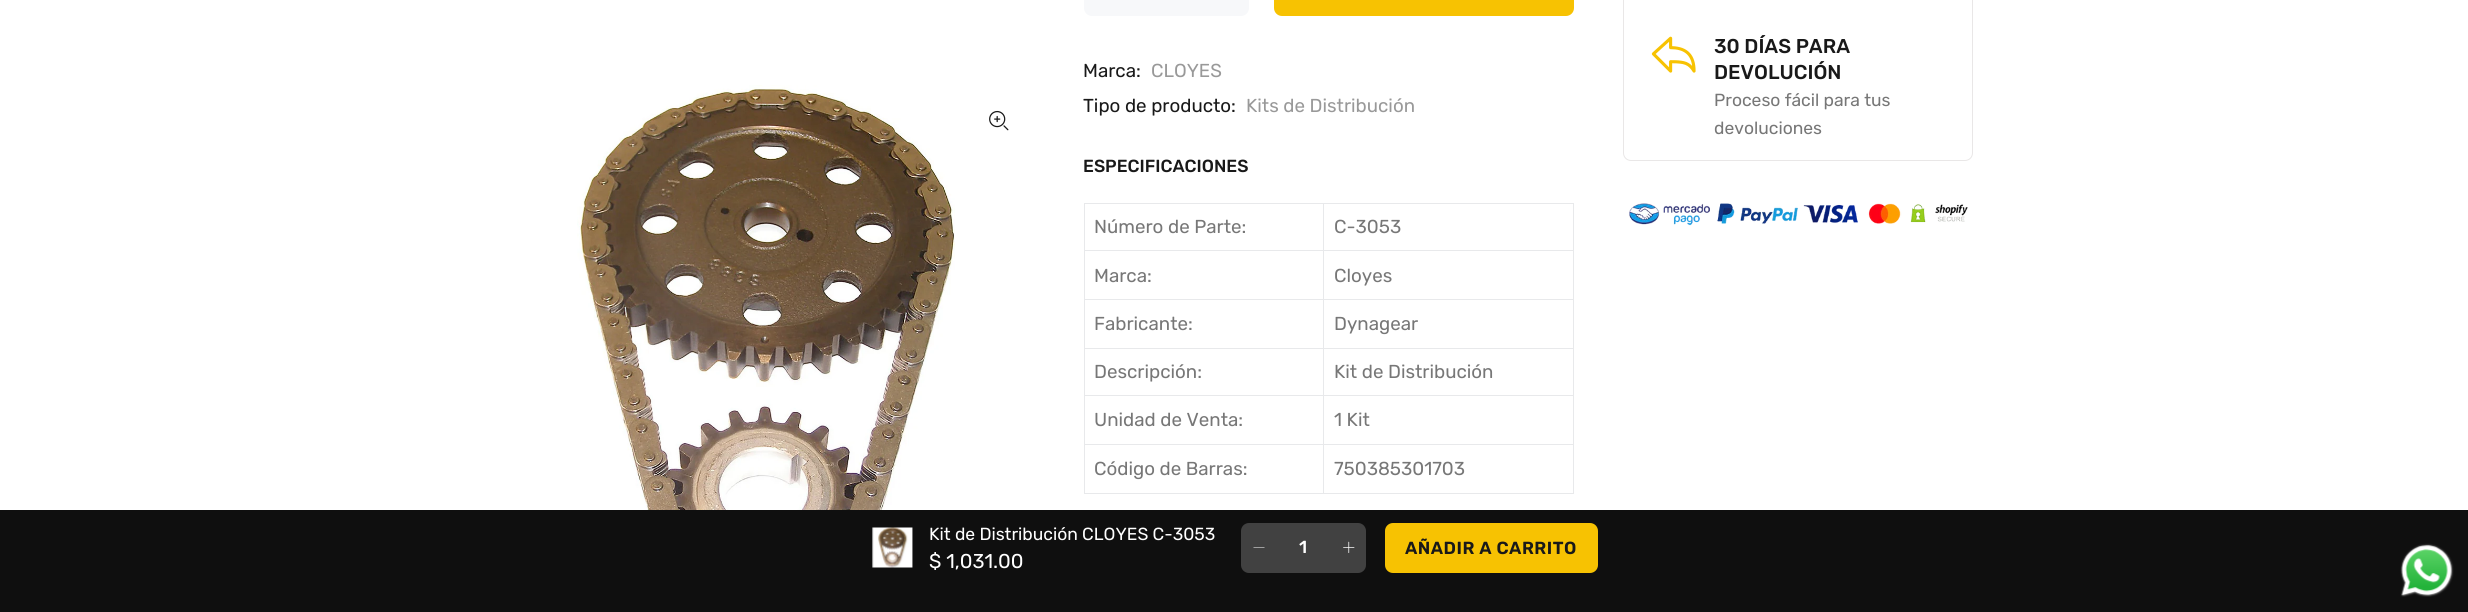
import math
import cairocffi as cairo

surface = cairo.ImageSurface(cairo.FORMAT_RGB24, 2468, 612)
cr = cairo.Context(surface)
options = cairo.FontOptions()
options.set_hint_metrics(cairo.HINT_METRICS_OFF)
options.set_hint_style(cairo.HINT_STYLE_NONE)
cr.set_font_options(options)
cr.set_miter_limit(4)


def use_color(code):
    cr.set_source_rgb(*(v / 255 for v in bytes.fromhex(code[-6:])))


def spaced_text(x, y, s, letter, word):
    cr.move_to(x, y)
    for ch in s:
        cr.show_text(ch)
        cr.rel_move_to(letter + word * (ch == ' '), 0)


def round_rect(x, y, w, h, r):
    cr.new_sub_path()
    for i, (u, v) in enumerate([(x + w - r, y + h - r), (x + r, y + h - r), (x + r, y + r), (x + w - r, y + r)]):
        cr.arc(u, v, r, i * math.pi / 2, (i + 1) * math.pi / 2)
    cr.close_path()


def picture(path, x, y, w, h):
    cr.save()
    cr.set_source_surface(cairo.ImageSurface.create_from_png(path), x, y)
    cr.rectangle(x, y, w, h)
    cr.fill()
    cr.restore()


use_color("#ffffff")
cr.paint()
picture("img1.png", 577, 85, 378, 425)
picture("img2.png", 989, 110, 20, 21)
use_color("#f7f8fa")
round_rect(1084, -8, 165, 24, 8)
cr.fill()
use_color("#f7c202")
round_rect(1274, -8, 300, 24, 8)
cr.fill()
cr.select_font_face("Rubik")
cr.set_font_size(18.75)
use_color("#191919")
cr.move_to(1083, 77)
cr.show_text("Marca:")
use_color("#999999")
cr.move_to(1151, 77)
cr.show_text("CLOYES")
use_color("#191919")
cr.move_to(1083, 112)
cr.show_text("Tipo de producto:")
use_color("#999999")
cr.move_to(1246, 112)
cr.show_text("Kits de Distribución")
cr.select_font_face("Rubik Medium")
cr.set_font_size(17.5)
use_color("#191919")
cr.move_to(1083, 172)
cr.show_text("ESPECIFICACIONES")
use_color("#e8e9eb")
cr.rectangle(1323, 203, 251, 1)
cr.fill()
cr.rectangle(1323, 250, 251, 1)
cr.fill()
cr.rectangle(1323, 299, 251, 1)
cr.fill()
cr.rectangle(1323, 348, 251, 1)
cr.fill()
cr.rectangle(1323, 395, 251, 1)
cr.fill()
cr.rectangle(1323, 444, 251, 1)
cr.fill()
cr.rectangle(1573, 444, 1, 50)
cr.fill()
cr.rectangle(1323, 493, 251, 1)
cr.fill()
cr.rectangle(1323, 444, 1, 50)
cr.fill()
cr.rectangle(1084, 444, 240, 1)
cr.fill()
cr.rectangle(1323, 395, 1, 50)
cr.fill()
cr.rectangle(1084, 395, 240, 1)
cr.fill()
cr.rectangle(1323, 348, 1, 48)
cr.fill()
cr.rectangle(1084, 348, 240, 1)
cr.fill()
cr.rectangle(1323, 299, 1, 50)
cr.fill()
cr.rectangle(1084, 299, 240, 1)
cr.fill()
cr.rectangle(1323, 250, 1, 50)
cr.fill()
cr.rectangle(1084, 250, 240, 1)
cr.fill()
cr.rectangle(1323, 203, 1, 48)
cr.fill()
cr.rectangle(1084, 203, 240, 1)
cr.fill()
cr.rectangle(1084, 493, 240, 1)
cr.fill()
cr.rectangle(1084, 444, 1, 50)
cr.fill()
cr.rectangle(1084, 395, 1, 50)
cr.fill()
cr.rectangle(1084, 348, 1, 48)
cr.fill()
cr.rectangle(1084, 299, 1, 50)
cr.fill()
cr.rectangle(1084, 250, 1, 50)
cr.fill()
cr.rectangle(1084, 203, 1, 48)
cr.fill()
cr.select_font_face("Rubik")
cr.set_font_size(18.75)
use_color("#777777")
cr.move_to(1094, 233)
cr.show_text("Número de Parte:")
use_color("#e8e9eb")
cr.rectangle(1573, 395, 1, 50)
cr.fill()
cr.rectangle(1573, 348, 1, 48)
cr.fill()
cr.rectangle(1573, 299, 1, 50)
cr.fill()
cr.rectangle(1573, 250, 1, 50)
cr.fill()
cr.rectangle(1573, 203, 1, 48)
cr.fill()
use_color("#777777")
cr.move_to(1334, 233)
cr.show_text("C-3053")
cr.move_to(1094, 282)
cr.show_text("Marca:")
cr.move_to(1334, 282)
cr.show_text("Cloyes")
cr.move_to(1094, 330)
cr.show_text("Fabricante:")
cr.move_to(1334, 330)
cr.show_text("Dynagear")
cr.move_to(1094, 378)
cr.show_text("Descripción:")
cr.move_to(1334, 378)
cr.show_text("Kit de Distribución")
cr.move_to(1094, 426)
cr.show_text("Unidad de Venta:")
cr.move_to(1334, 426)
cr.show_text("1 Kit")
cr.move_to(1094, 475)
cr.show_text("Código de Barras:")
cr.move_to(1334, 475)
cr.show_text("750385301703")
round_rect(1623.5, -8.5, 349, 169, 7.5)
use_color("#e9e7e7")
cr.set_line_width(1)
cr.stroke()
picture("img3.png", 1651, 36, 45, 37)
cr.select_font_face("Rubik Medium")
cr.set_font_size(20)
use_color("#191919")
cr.move_to(1714, 53)
cr.show_text("30 DÍAS PARA")
cr.move_to(1714, 79)
cr.show_text("DEVOLUCIÓN")
cr.select_font_face("Rubik")
cr.set_font_size(17.5)
use_color("#777777")
cr.move_to(1714, 106)
cr.show_text("Proceso fácil para tus")
cr.move_to(1714, 134)
cr.show_text("devoluciones")
picture("img4.png", 1629, 203, 339, 23)
use_color("#0f0f0f")
cr.rectangle(0, 510, 2468, 102)
cr.fill()
picture("img5.png", 872, 527, 41, 41)
use_color("#ffffff")
cr.move_to(929, 540)
cr.show_text("Kit de Distribución CLOYES C-3053")
cr.set_font_size(20)
cr.move_to(929, 568)
cr.show_text("$ 1,031.00")
use_color("#414141")
round_rect(1241, 523, 125, 50, 8)
cr.fill()
use_color("#ffffff")
cr.new_path()
cr.move_to(1264.5, 547)
cr.line_to(1264.5, 547.5)
cr.line_to(1253.5, 547.5)
cr.line_to(1253.5, 547)
cr.close_path()
cr.fill()
cr.select_font_face("Rubik Medium")
cr.set_font_size(17.5)
cr.move_to(1299, 553)
cr.show_text("1")
picture("img6.png", 1343, 541, 12, 12)
use_color("#f7c202")
round_rect(1385, 523, 213, 50, 8)
cr.fill()
cr.select_font_face("Rubik SemiBold")
use_color("#191919")
spaced_text(1405, 554, "AÑADIR A CARRITO", 0.5, 0)
picture("img7.png", 2400, 543, 54, 54)
surface.write_to_png("result.png")
